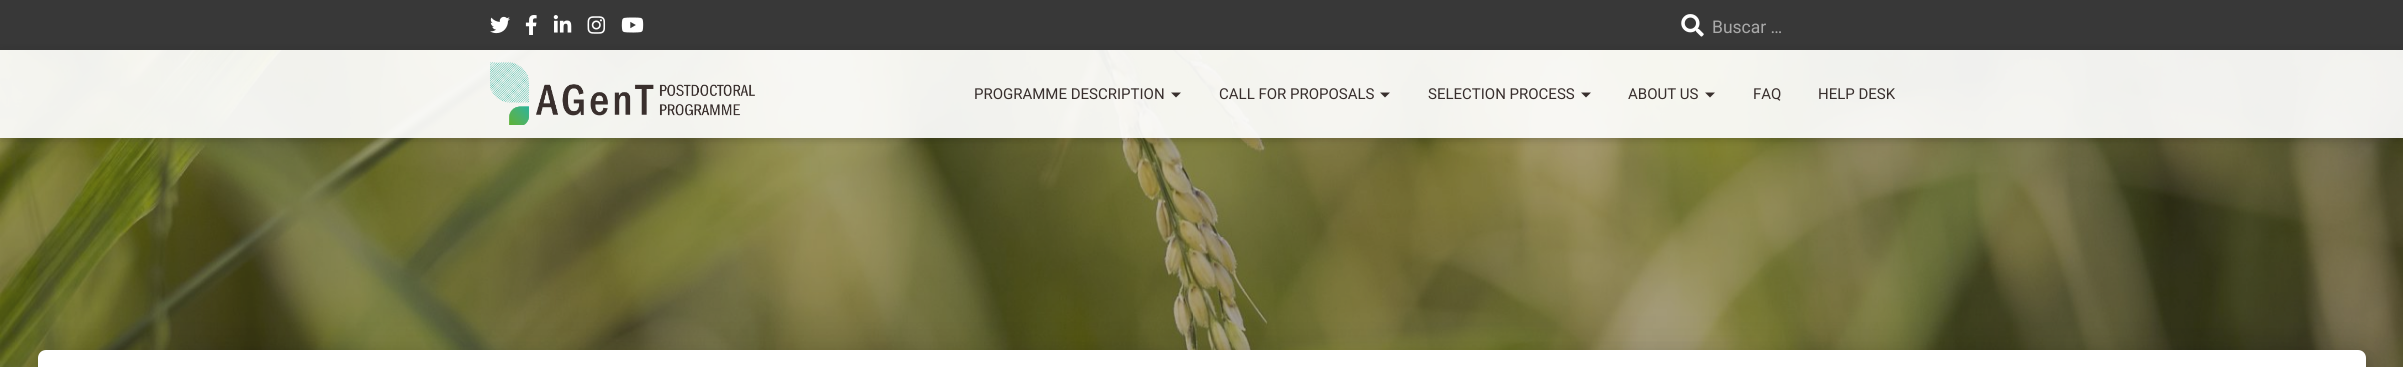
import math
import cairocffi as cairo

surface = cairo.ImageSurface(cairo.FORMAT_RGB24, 2403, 367)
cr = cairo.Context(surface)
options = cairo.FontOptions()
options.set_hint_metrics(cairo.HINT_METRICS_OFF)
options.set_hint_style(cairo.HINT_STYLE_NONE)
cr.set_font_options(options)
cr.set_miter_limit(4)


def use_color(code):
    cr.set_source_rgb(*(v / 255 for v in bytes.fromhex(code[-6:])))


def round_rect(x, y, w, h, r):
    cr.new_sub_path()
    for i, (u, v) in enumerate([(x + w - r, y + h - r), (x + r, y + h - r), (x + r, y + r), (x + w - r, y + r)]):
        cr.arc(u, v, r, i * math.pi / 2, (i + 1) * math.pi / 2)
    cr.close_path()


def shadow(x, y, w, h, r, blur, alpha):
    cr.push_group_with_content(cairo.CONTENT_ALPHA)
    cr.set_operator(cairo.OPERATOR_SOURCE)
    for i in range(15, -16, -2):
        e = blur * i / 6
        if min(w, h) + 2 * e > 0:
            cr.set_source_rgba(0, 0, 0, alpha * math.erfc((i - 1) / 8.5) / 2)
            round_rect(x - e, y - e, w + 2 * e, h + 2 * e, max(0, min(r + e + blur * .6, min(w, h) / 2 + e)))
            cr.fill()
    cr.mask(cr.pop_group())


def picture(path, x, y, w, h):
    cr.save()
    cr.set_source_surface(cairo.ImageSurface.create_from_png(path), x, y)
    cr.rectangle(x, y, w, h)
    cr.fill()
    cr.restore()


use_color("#383838")
cr.paint()
picture("img1.png", 490, 16, 20, 18)
picture("img2.png", 525, 15, 12, 20)
picture("img3.png", 553, 15, 19, 18)
picture("img4.png", 587, 16, 19, 18)
picture("img5.png", 621, 17, 23, 16)
picture("img6.png", 1681, 14, 23, 23)
cr.select_font_face("Roboto")
cr.set_font_size(17.5)
use_color("#aaaaaa")
cr.move_to(1712, 33)
cr.show_text("Buscar …")
picture("img8.png", 0, 50, 2403, 317)
cr.save()
cr.set_fill_rule(cairo.FILL_RULE_EVEN_ODD)
cr.new_path()
cr.move_to(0, 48)
cr.line_to(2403, 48)
cr.line_to(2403, 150)
cr.line_to(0, 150)
cr.close_path()
cr.move_to(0, 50)
cr.line_to(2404, 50)
cr.line_to(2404, 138)
cr.line_to(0, 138)
cr.close_path()
cr.clip()
use_color("#000000")
shadow(3, 58, 2398, 82, 0, 3, 0.1)
cr.restore()
cr.save()
cr.set_fill_rule(cairo.FILL_RULE_EVEN_ODD)
cr.new_path()
cr.move_to(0, 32)
cr.line_to(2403, 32)
cr.line_to(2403, 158)
cr.line_to(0, 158)
cr.close_path()
cr.move_to(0, 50)
cr.line_to(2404, 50)
cr.line_to(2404, 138)
cr.line_to(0, 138)
cr.close_path()
cr.clip()
use_color("#000000")
shadow(0, 51, 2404, 88, 0, 6, 0.12)
cr.restore()
cr.set_source_rgba(1, 1, 1, 0.92)
cr.rectangle(0, 50, 2403, 88)
cr.fill()
picture("img7.png", 490, 62, 265, 63)
cr.set_font_size(15)
use_color("#382f2d")
cr.move_to(974, 99)
cr.show_text("PROGRAMME DESCRIPTION")
cr.new_path()
cr.move_to(1171, 92.5)
cr.line_to(1181, 92.5)
cr.line_to(1176, 97.5)
cr.close_path()
cr.fill()
cr.move_to(1219, 99)
cr.show_text("CALL FOR PROPOSALS")
cr.new_path()
cr.move_to(1380, 92.5)
cr.line_to(1390, 92.5)
cr.line_to(1385, 97.5)
cr.close_path()
cr.fill()
cr.move_to(1428, 99)
cr.show_text("SELECTION PROCESS")
cr.new_path()
cr.move_to(1581, 92.5)
cr.line_to(1591, 92.5)
cr.line_to(1586, 97.5)
cr.close_path()
cr.fill()
cr.move_to(1628, 99)
cr.show_text("ABOUT US")
cr.new_path()
cr.move_to(1705, 92.5)
cr.line_to(1715, 92.5)
cr.line_to(1710, 97.5)
cr.close_path()
cr.fill()
cr.move_to(1753, 99)
cr.show_text("FAQ")
cr.move_to(1818, 99)
cr.show_text("HELP DESK")
use_color("#000000")
shadow(31, 351, 2342, 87, 14, 19, 0.12)
shadow(35, 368, 2334, 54, 10, 15, 0.14)
use_color("#ffffff")
cr.new_path()
cr.move_to(46, 350)
cr.line_to(2358, 350)
cr.curve_to(2362.5, 350, 2366, 353.5, 2366, 358)
cr.line_to(2366, 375)
cr.line_to(38, 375)
cr.line_to(38, 358)
cr.curve_to(38, 353.5, 41.5, 350, 46, 350)
cr.close_path()
cr.fill()
surface.write_to_png("result.png")
